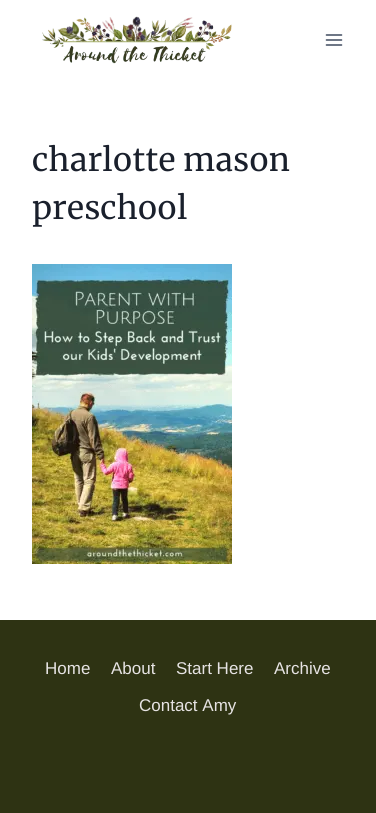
import math
import cairocffi as cairo

surface = cairo.ImageSurface(cairo.FORMAT_RGB24, 376, 813)
cr = cairo.Context(surface)
options = cairo.FontOptions()
options.set_hint_metrics(cairo.HINT_METRICS_OFF)
options.set_hint_style(cairo.HINT_STYLE_NONE)
cr.set_font_options(options)
cr.set_miter_limit(4)


def use_color(code):
    cr.set_source_rgb(*(v / 255 for v in bytes.fromhex(code[-6:])))


def picture(path, x, y, w, h):
    cr.save()
    cr.set_source_surface(cairo.ImageSurface.create_from_png(path), x, y)
    cr.rectangle(x, y, w, h)
    cr.fill()
    cr.restore()


use_color("#ffffff")
cr.paint()
picture("img1.png", 42, 16, 190, 48)
picture("img2.png", 325, 34, 18, 12)
cr.select_font_face("Merriweather")
cr.set_font_size(32)
use_color("#1a202c")
cr.move_to(32, 171)
cr.show_text("charlotte mason")
cr.move_to(32, 219)
cr.show_text("preschool")
picture("img3.png", 32, 264, 200, 300)
use_color("#2e3313")
cr.rectangle(0, 620, 376, 193)
cr.fill()
cr.select_font_face("Liberation Sans")
cr.set_font_size(17)
use_color("#e6e3e3")
cr.move_to(45, 674)
cr.show_text("Home")
cr.move_to(111, 674)
cr.show_text("About")
cr.move_to(176, 674)
cr.show_text("Start Here")
cr.move_to(274, 674)
cr.show_text("Archive")
cr.move_to(139, 711)
cr.show_text("Contact Amy")
surface.write_to_png("result.png")
